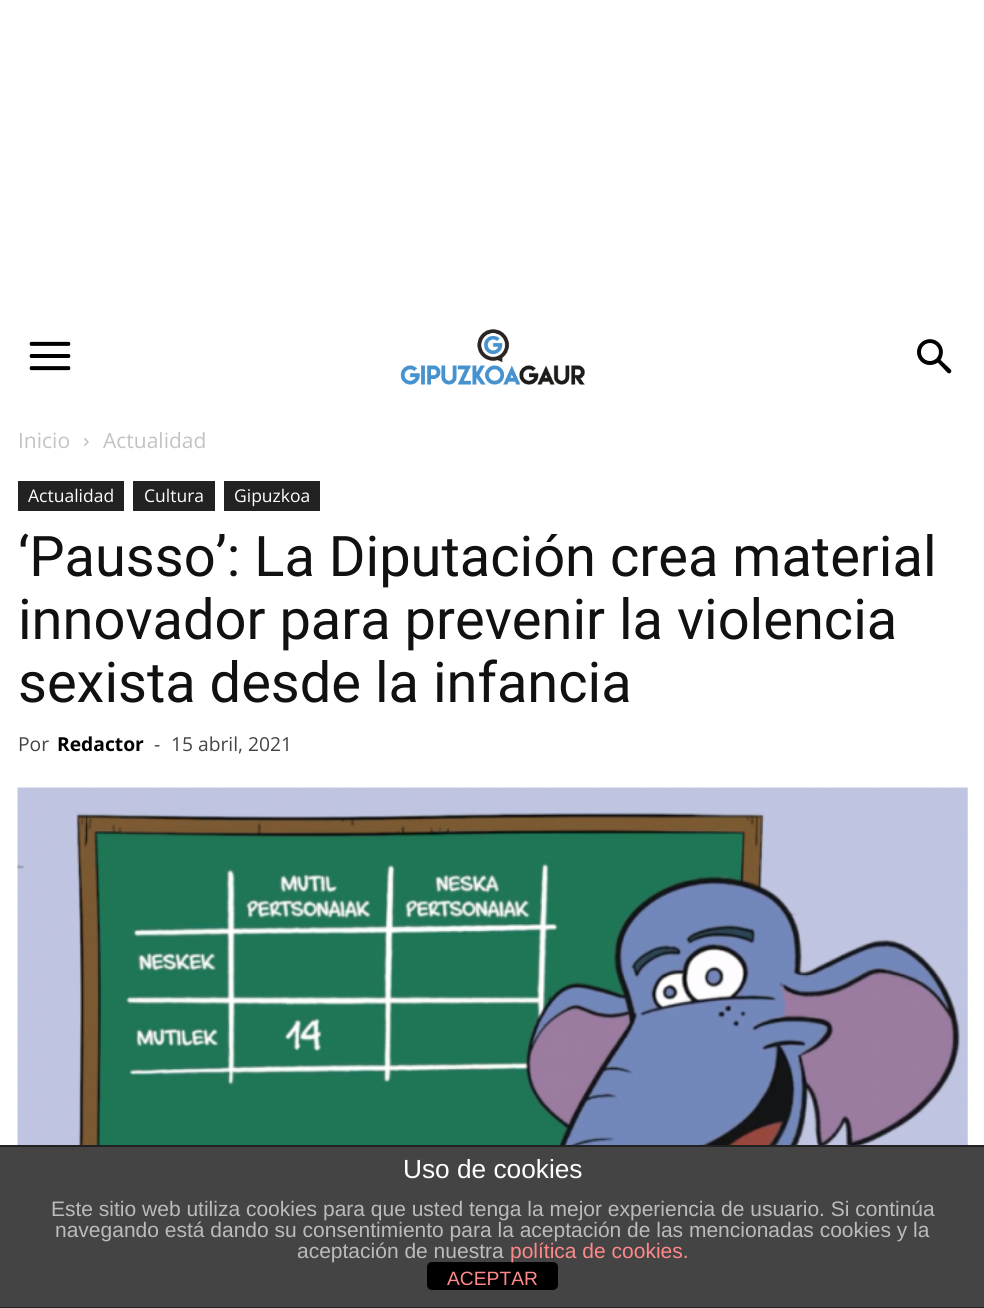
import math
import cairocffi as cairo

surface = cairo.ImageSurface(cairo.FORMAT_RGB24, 984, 1308)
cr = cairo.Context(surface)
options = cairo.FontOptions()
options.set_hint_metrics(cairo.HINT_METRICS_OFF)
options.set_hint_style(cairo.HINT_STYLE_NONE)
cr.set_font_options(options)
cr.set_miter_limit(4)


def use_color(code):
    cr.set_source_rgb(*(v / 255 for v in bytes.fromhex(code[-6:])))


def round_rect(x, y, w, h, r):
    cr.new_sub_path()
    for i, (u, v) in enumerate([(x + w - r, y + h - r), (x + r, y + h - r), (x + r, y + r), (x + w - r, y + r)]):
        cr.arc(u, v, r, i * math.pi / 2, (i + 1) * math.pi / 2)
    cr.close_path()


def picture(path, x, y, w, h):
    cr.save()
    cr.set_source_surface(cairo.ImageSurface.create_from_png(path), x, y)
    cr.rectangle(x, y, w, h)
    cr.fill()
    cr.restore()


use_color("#ffffff")
cr.paint()
picture("img1.png", 29, 341, 42, 30)
picture("img2.png", 400, 329, 185, 56)
picture("img3.png", 917, 339, 35, 35)
cr.select_font_face("Open Sans")
cr.set_font_size(21)
use_color("#c3c3c3")
cr.move_to(18, 448)
cr.show_text("Inicio")
picture("img4.png", 84, 438, 5, 8)
cr.move_to(103, 448)
cr.show_text("Actualidad")
use_color("#222222")
cr.rectangle(18, 481, 106, 30)
cr.fill()
cr.set_font_size(17.5)
use_color("#ffffff")
cr.move_to(28, 502)
cr.show_text("Actualidad")
use_color("#222222")
cr.rectangle(133, 481, 82, 30)
cr.fill()
use_color("#ffffff")
cr.move_to(144, 502)
cr.show_text("Cultura")
use_color("#222222")
cr.rectangle(224, 481, 96, 30)
cr.fill()
use_color("#ffffff")
cr.move_to(234, 502)
cr.show_text("Gipuzkoa")
cr.select_font_face("Roboto")
cr.set_font_size(56)
use_color("#111111")
cr.move_to(18, 576)
cr.show_text("‘Pausso’: La Diputación crea material")
cr.move_to(18, 639)
cr.show_text("innovador para prevenir la violencia")
cr.move_to(18, 702)
cr.show_text("sexista desde la infancia")
cr.select_font_face("Open Sans")
cr.set_font_size(19.25)
use_color("#444444")
cr.move_to(18, 751)
cr.show_text("Por")
cr.select_font_face("Open Sans", cairo.FONT_SLANT_NORMAL, cairo.FONT_WEIGHT_BOLD)
use_color("#000000")
cr.move_to(57, 751)
cr.show_text("Redactor")
cr.select_font_face("Open Sans")
use_color("#444444")
cr.move_to(154, 751)
cr.show_text("-")
cr.move_to(171, 751)
cr.show_text("15 abril, 2021")
picture("img5.png", 17, 787, 951, 358)
cr.rectangle(0, 1147, 984, 160)
cr.fill()
use_color("#222222")
cr.rectangle(0, 1145, 984, 2)
cr.fill()
cr.rectangle(0, 1307, 984, 1)
cr.fill()
cr.select_font_face("Liberation Sans")
cr.set_font_size(26.25)
use_color("#ffffff")
cr.move_to(403, 1178)
cr.show_text("Uso de cookies")
cr.set_font_size(21)
use_color("#bbbbbb")
cr.move_to(51, 1216)
cr.show_text("Este sitio web utiliza cookies para que usted tenga la mejor experiencia de usuario. Si continúa")
cr.move_to(55, 1237)
cr.show_text("navegando está dando su consentimiento para la aceptación de las mencionadas cookies y la")
use_color("#000000")
round_rect(427, 1262, 131, 28, 5)
cr.fill()
use_color("#bbbbbb")
cr.move_to(297, 1258)
cr.show_text("aceptación de nuestra")
use_color("#ff8888")
cr.move_to(510, 1258)
cr.show_text("política de cookies.")
cr.set_font_size(19.25)
cr.move_to(447, 1285)
cr.show_text("ACEPTAR")
surface.write_to_png("result.png")
